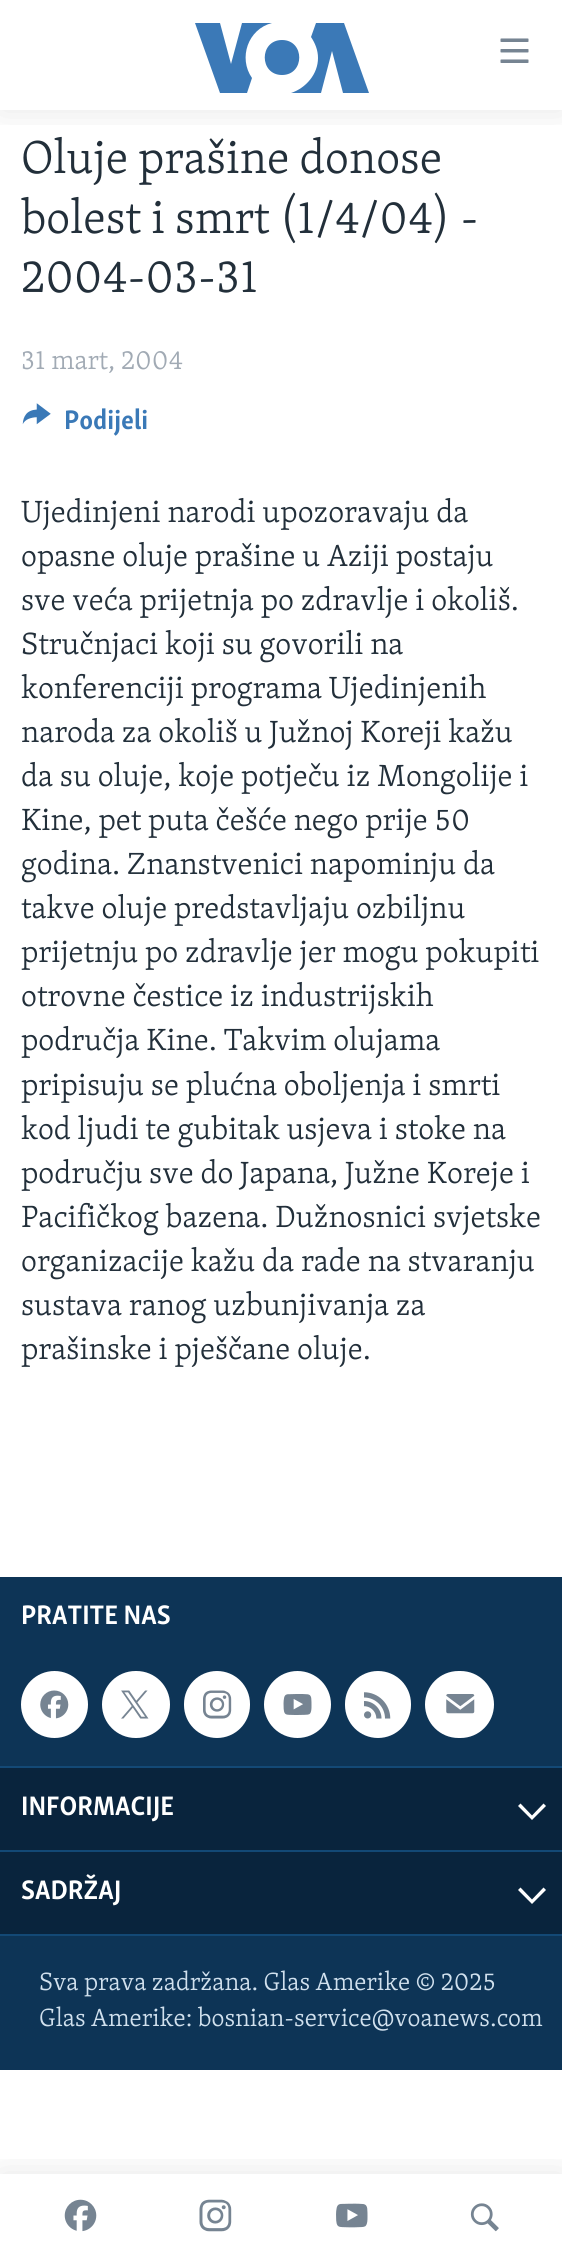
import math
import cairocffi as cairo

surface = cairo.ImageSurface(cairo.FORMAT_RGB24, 562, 2260)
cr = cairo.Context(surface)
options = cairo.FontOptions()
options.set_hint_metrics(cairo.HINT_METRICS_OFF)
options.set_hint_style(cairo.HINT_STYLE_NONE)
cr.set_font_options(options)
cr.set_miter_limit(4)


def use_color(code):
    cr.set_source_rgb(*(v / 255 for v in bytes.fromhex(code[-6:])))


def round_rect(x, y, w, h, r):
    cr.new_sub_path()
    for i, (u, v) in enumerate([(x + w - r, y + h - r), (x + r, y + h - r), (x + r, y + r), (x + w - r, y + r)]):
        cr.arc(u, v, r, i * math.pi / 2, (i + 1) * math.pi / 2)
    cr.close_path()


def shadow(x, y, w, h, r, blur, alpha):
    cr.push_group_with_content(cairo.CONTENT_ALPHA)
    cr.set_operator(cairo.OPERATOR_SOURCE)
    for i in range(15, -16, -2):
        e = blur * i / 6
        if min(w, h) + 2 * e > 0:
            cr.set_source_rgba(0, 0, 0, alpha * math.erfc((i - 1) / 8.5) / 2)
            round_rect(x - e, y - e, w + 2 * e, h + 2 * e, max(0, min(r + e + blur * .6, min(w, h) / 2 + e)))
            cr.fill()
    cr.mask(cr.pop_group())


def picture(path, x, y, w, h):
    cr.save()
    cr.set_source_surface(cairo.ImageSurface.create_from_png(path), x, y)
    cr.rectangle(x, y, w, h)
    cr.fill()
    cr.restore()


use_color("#ffffff")
cr.paint()
cr.save()
cr.rectangle(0, 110, 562, 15)
cr.clip()
use_color("#000000")
shadow(0, 0, 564, 110, 0, 17.5, 0.1)
cr.restore()
use_color("#3b79b7")
cr.new_path()
cr.move_to(252, 78)
cr.line_to(247, 93)
cr.line_to(220, 93)
cr.line_to(195, 23)
cr.line_to(220, 23)
cr.line_to(231, 64)
cr.line_to(242, 23)
cr.line_to(272, 23)
cr.curve_to(248, 29, 238, 58, 252, 78)
cr.close_path()
cr.move_to(282, 40)
cr.curve_to(259, 40, 259, 75, 282, 75)
cr.curve_to(305, 75, 305, 40, 282, 40)
cr.close_path()
cr.move_to(318, 58)
cr.curve_to(318, 74, 306, 88, 291, 93)
cr.line_to(321, 93)
cr.line_to(332, 51)
cr.line_to(343, 93)
cr.line_to(369, 93)
cr.line_to(344, 23)
cr.line_to(316, 23)
cr.line_to(311, 37)
cr.curve_to(315, 43, 318, 50, 318, 58)
cr.close_path()
cr.fill()
picture("img1.png", 500, 38, 29, 25)
cr.save()
cr.rectangle(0, 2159, 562, 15)
cr.clip()
use_color("#000000")
shadow(0, 2174, 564, 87, 0, 17.5, 0.1)
cr.restore()
picture("img2.png", 64, 2199, 33, 33)
picture("img3.png", 199, 2199, 33, 33)
picture("img4.png", 336, 2203, 32, 25)
picture("img5.png", 470, 2203, 29, 29)
cr.select_font_face("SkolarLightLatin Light")
cr.set_font_size(47.25)
use_color("#222f3a")
cr.move_to(21, 173)
cr.show_text("Oluje prašine donose")
cr.move_to(21, 233)
cr.show_text("bolest i smrt (1/4/04) -")
cr.move_to(21, 292)
cr.show_text("2004-03-31")
cr.set_font_size(27.5)
use_color("#a1aab4")
cr.move_to(21, 369)
cr.show_text("31 mart, 2004")
picture("img6.png", 22, 403, 29, 22)
cr.select_font_face("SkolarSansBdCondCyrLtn", cairo.FONT_SLANT_NORMAL, cairo.FONT_WEIGHT_BOLD)
use_color("#3a79b7")
cr.move_to(64, 429)
cr.show_text("Podijeli")
cr.select_font_face("SkolarLightLatin Light")
cr.set_font_size(31.5)
use_color("#222f3a")
cr.move_to(21, 522)
cr.show_text("Ujedinjeni narodi upozoravaju da")
cr.move_to(21, 566)
cr.show_text("opasne oluje prašine u Aziji postaju")
cr.move_to(21, 610)
cr.show_text("sve veća prijetnja po zdravlje i okoliš.")
cr.move_to(21, 654)
cr.show_text("Stručnjaci koji su govorili na")
cr.move_to(21, 698)
cr.show_text("konferenciji programa Ujedinjenih")
cr.move_to(21, 742)
cr.show_text("naroda za okoliš u Južnoj Koreji kažu")
cr.move_to(21, 786)
cr.show_text("da su oluje, koje potječu iz Mongolije i")
cr.move_to(21, 830)
cr.show_text("Kine, pet puta češće nego prije 50")
cr.move_to(21, 874)
cr.show_text("godina. Znanstvenici napominju da")
cr.move_to(21, 918)
cr.show_text("takve oluje predstavljaju ozbiljnu")
cr.move_to(21, 962)
cr.show_text("prijetnju po zdravlje jer mogu pokupiti")
cr.move_to(21, 1006)
cr.show_text("otrovne čestice iz industrijskih")
cr.move_to(21, 1050)
cr.show_text("područja Kine. Takvim olujama")
cr.move_to(21, 1095)
cr.show_text("pripisuju se plućna oboljenja i smrti")
cr.move_to(21, 1139)
cr.show_text("kod ljudi te gubitak usjeva i stoke na")
cr.move_to(21, 1183)
cr.show_text("području sve do Japana, Južne Koreje i")
cr.move_to(21, 1227)
cr.show_text("Pacifičkog bazena. Dužnosnici svjetske")
cr.move_to(21, 1271)
cr.show_text("organizacije kažu da rade na stvaranju")
cr.move_to(21, 1315)
cr.show_text("sustava ranog uzbunjivanja za")
cr.move_to(21, 1359)
cr.show_text("prašinske i pješčane oluje.")
use_color("#0d3456")
cr.rectangle(0, 1577, 562, 493)
cr.fill()
use_color("#134976")
cr.rectangle(0, 1934, 562, 2)
cr.fill()
cr.select_font_face("SkolarSansBdCondCyrLtn", cairo.FONT_SLANT_NORMAL, cairo.FONT_WEIGHT_BOLD)
cr.set_font_size(27.5)
use_color("#ffffff")
cr.move_to(21, 1624)
cr.show_text("PRATITE NAS")
cr.new_path()
cr.arc(54.5, 1704.5, 33.5, 0, 2 * math.pi)
cr.fill()
picture("img7.png", 40, 1690, 29, 29)
round_rect(102, 1671, 68, 67, 33.5)
cr.fill()
picture("img8.png", 121, 1690, 28, 29)
round_rect(184, 1671, 66, 67, 33)
cr.fill()
picture("img9.png", 203, 1690, 29, 29)
cr.arc(297.5, 1704.5, 33.5, 0, 2 * math.pi)
cr.fill()
picture("img10.png", 283, 1694, 29, 21)
round_rect(345, 1671, 66, 67, 33)
cr.fill()
picture("img11.png", 364, 1692, 27, 27)
round_rect(425, 1671, 69, 67, 33.5)
cr.fill()
picture("img12.png", 446, 1694, 29, 20)
use_color("#134976")
cr.rectangle(0, 1766, 562, 2)
cr.fill()
use_color("#09243d")
cr.rectangle(0, 1768, 562, 82)
cr.fill()
use_color("#ffffff")
cr.move_to(21, 1815)
cr.show_text("INFORMACIJE")
cr.new_path()
cr.move_to(518, 1806)
cr.line_to(532, 1820)
cr.line_to(546, 1806)
cr.line_to(543.5, 1803.5)
cr.line_to(532, 1815.5)
cr.line_to(520.5, 1803.5)
cr.close_path()
cr.fill()
use_color("#134976")
cr.rectangle(0, 1850, 562, 2)
cr.fill()
use_color("#09243d")
cr.rectangle(0, 1852, 562, 82)
cr.fill()
use_color("#ffffff")
cr.move_to(21, 1899)
cr.show_text("SADRŽAJ")
cr.new_path()
cr.move_to(518, 1890)
cr.line_to(532, 1904)
cr.line_to(546, 1890)
cr.line_to(543.5, 1887.5)
cr.line_to(532, 1899.5)
cr.line_to(520.5, 1887.5)
cr.close_path()
cr.fill()
cr.select_font_face("SkolarLightLatin Light")
cr.set_font_size(25.6)
use_color("#d1e1ee")
cr.move_to(39, 1990)
cr.show_text("Sva prava zadržana. Glas Amerike © 2025")
cr.move_to(39, 2026)
cr.show_text("Glas Amerike: bosnian-service@voanews.com")
surface.write_to_png("result.png")
